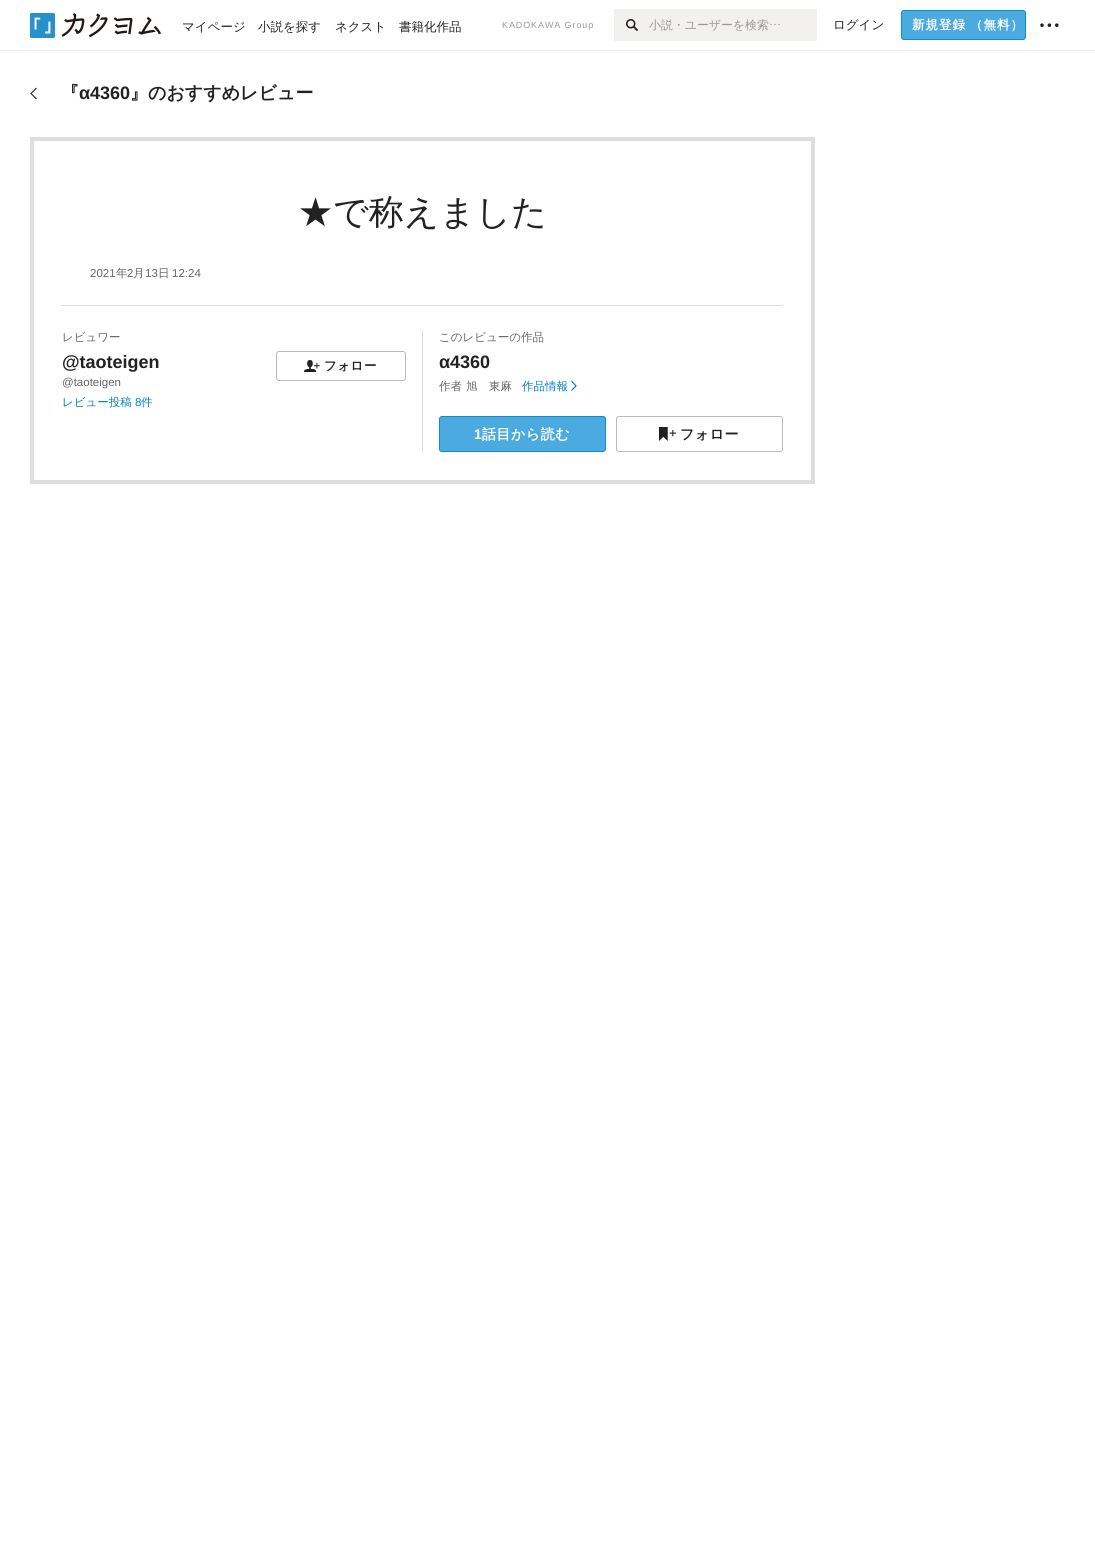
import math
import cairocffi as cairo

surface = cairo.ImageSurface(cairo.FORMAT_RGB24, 1095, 1547)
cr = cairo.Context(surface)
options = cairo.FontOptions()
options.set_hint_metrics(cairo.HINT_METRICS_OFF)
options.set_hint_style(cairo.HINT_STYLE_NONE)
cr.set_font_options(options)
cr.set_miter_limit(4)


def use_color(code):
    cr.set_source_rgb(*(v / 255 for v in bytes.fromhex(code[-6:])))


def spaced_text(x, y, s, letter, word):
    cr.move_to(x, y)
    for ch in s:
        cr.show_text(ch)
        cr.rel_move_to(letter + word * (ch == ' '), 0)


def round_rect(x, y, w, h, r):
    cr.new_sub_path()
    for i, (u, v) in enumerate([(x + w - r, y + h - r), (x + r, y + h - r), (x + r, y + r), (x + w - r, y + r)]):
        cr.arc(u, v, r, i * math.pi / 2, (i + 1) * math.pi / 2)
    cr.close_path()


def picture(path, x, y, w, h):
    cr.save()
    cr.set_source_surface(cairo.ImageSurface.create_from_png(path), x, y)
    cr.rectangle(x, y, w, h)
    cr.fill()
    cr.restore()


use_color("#ffffff")
cr.paint()
use_color("#f2f2f2")
cr.rectangle(0, 50, 1095, 1)
cr.fill()
picture("img1.png", 30, 13, 131, 25)
cr.select_font_face("WenQuanYi Zen Hei Medium")
cr.set_font_size(12.5)
use_color("#222222")
cr.move_to(182, 31)
cr.show_text("マイページ")
cr.move_to(258, 31)
cr.show_text("小説を探す")
cr.move_to(335, 31)
cr.show_text("ネクスト")
cr.move_to(399, 31)
cr.show_text("書籍化作品")
cr.select_font_face("Liberation Sans")
cr.set_font_size(9)
use_color("#999999")
spaced_text(502, 28, "KADOKAWA Group", 0.9, 0)
use_color("#f2f1f0")
cr.rectangle(614, 9, 203, 32)
cr.fill()
picture("img2.png", 626, 19, 12, 12)
cr.select_font_face("WenQuanYi Zen Hei Medium")
cr.set_font_size(11.9)
use_color("#999999")
cr.move_to(649, 29)
cr.show_text("小説・ユーザーを検索")
picture("img3.png", 770, 23, 10, 3)
cr.set_font_size(12.5)
use_color("#222222")
cr.move_to(833, 29)
cr.show_text("ログイン")
use_color("#4baae0")
round_rect(901.5, 10.5, 124, 29, 2.5)
cr.fill_preserve()
use_color("#0990cc")
cr.set_line_width(1)
cr.stroke()
cr.select_font_face("WenQuanYi Zen Hei", cairo.FONT_SLANT_NORMAL, cairo.FONT_WEIGHT_BOLD)
use_color("#ffffff")
spaced_text(912, 29, "新規登録", 1, 0)
spaced_text(970, 29, "（無料）", 1, 0)
use_color("#222222")
cr.new_path()
cr.arc(1042, 25.2, 1.8, 0, 2 * math.pi)
cr.fill()
cr.arc(1049.4, 25.2, 1.8, 0, 2 * math.pi)
cr.fill()
cr.arc(1056.8, 25.2, 1.8, 0, 2 * math.pi)
cr.fill()
cr.new_path()
cr.move_to(36.5, 99)
cr.line_to(31, 93.5)
cr.line_to(36.5, 88)
cr.set_line_width(1.1)
cr.stroke()
cr.set_font_size(18)
cr.move_to(61, 99)
cr.show_text("『")
cr.select_font_face("Liberation Sans", cairo.FONT_SLANT_NORMAL, cairo.FONT_WEIGHT_BOLD)
cr.move_to(79, 99)
cr.show_text("α4360")
cr.select_font_face("WenQuanYi Zen Hei", cairo.FONT_SLANT_NORMAL, cairo.FONT_WEIGHT_BOLD)
cr.move_to(130, 99)
cr.show_text("』のおすすめレビュー")
cr.rectangle(32, 139, 781, 343)
use_color("#dddddd")
cr.set_line_width(4)
cr.stroke()
cr.select_font_face("WenQuanYi Zen Hei Medium")
cr.set_font_size(35)
use_color("#222222")
cr.move_to(298, 224)
cr.show_text("★で称えました")
use_color("#dddddd")
cr.rectangle(62, 305, 721, 1)
cr.fill()
cr.select_font_face("Liberation Sans")
cr.set_font_size(11.5)
use_color("#666666")
cr.move_to(90, 277)
cr.show_text("2021")
cr.select_font_face("WenQuanYi Zen Hei Medium")
cr.move_to(116, 277)
cr.show_text("年")
cr.select_font_face("Liberation Sans")
cr.move_to(127, 277)
cr.show_text("2")
cr.select_font_face("WenQuanYi Zen Hei Medium")
cr.move_to(133, 277)
cr.show_text("月")
cr.select_font_face("Liberation Sans")
cr.move_to(145, 277)
cr.show_text("13")
cr.select_font_face("WenQuanYi Zen Hei Medium")
cr.move_to(158, 277)
cr.show_text("日")
cr.select_font_face("Liberation Sans")
cr.move_to(172, 277)
cr.show_text("12:24")
use_color("#dddddd")
cr.rectangle(422, 330, 1, 122)
cr.fill()
cr.select_font_face("WenQuanYi Zen Hei Medium")
use_color("#666666")
cr.move_to(62, 341)
cr.show_text("レビュワー")
cr.select_font_face("Liberation Sans", cairo.FONT_SLANT_NORMAL, cairo.FONT_WEIGHT_BOLD)
cr.set_font_size(18)
use_color("#222222")
cr.move_to(62, 368)
cr.show_text("@taoteigen")
cr.select_font_face("Liberation Sans")
cr.set_font_size(11.5)
use_color("#666666")
cr.move_to(62, 386)
cr.show_text("@taoteigen")
round_rect(276.5, 351.5, 129, 29, 2.5)
use_color("#bbbbbb")
cr.set_line_width(1)
cr.stroke()
picture("img4.png", 304, 360, 16, 12)
cr.select_font_face("WenQuanYi Zen Hei", cairo.FONT_SLANT_NORMAL, cairo.FONT_WEIGHT_BOLD)
cr.set_font_size(12.5)
use_color("#222222")
spaced_text(324, 370, "フォロー", 0.5, 0)
cr.select_font_face("WenQuanYi Zen Hei Medium")
cr.set_font_size(11.5)
use_color("#0081c2")
cr.move_to(62, 406)
cr.show_text("レビュー投稿")
cr.select_font_face("Liberation Sans")
cr.move_to(135, 406)
cr.show_text("8")
cr.select_font_face("WenQuanYi Zen Hei Medium")
cr.move_to(141, 406)
cr.show_text("件")
use_color("#666666")
cr.move_to(439, 341)
cr.show_text("このレビューの作品")
cr.select_font_face("Liberation Sans", cairo.FONT_SLANT_NORMAL, cairo.FONT_WEIGHT_BOLD)
cr.set_font_size(18)
use_color("#222222")
cr.move_to(439, 368)
cr.show_text("α4360")
cr.select_font_face("WenQuanYi Zen Hei Medium")
cr.set_font_size(11.5)
use_color("#666666")
cr.move_to(439, 390)
cr.show_text("作者")
cr.move_to(466, 390)
cr.show_text("旭　東麻")
use_color("#0081c2")
cr.move_to(522, 390)
cr.show_text("作品情報")
cr.new_path()
cr.move_to(571.5, 381)
cr.line_to(576, 386)
cr.line_to(571.5, 390.5)
cr.set_line_width(1.2)
cr.stroke()
use_color("#4baae0")
round_rect(439.5, 416.5, 166, 35, 2.5)
cr.fill_preserve()
use_color("#0990cc")
cr.set_line_width(1)
cr.stroke()
cr.select_font_face("Liberation Sans", cairo.FONT_SLANT_NORMAL, cairo.FONT_WEIGHT_BOLD)
cr.set_font_size(14)
use_color("#ffffff")
spaced_text(474, 439, "1", 0.5, 0)
cr.select_font_face("WenQuanYi Zen Hei", cairo.FONT_SLANT_NORMAL, cairo.FONT_WEIGHT_BOLD)
spaced_text(482, 439, "話目から読む", 0.5, 0)
round_rect(616.5, 416.5, 166, 35, 2.5)
use_color("#bbbbbb")
cr.stroke()
picture("img5.png", 659, 427, 17, 14)
use_color("#222222")
spaced_text(680, 439, "フォロー", 0.5, 0)
surface.write_to_png("result.png")
